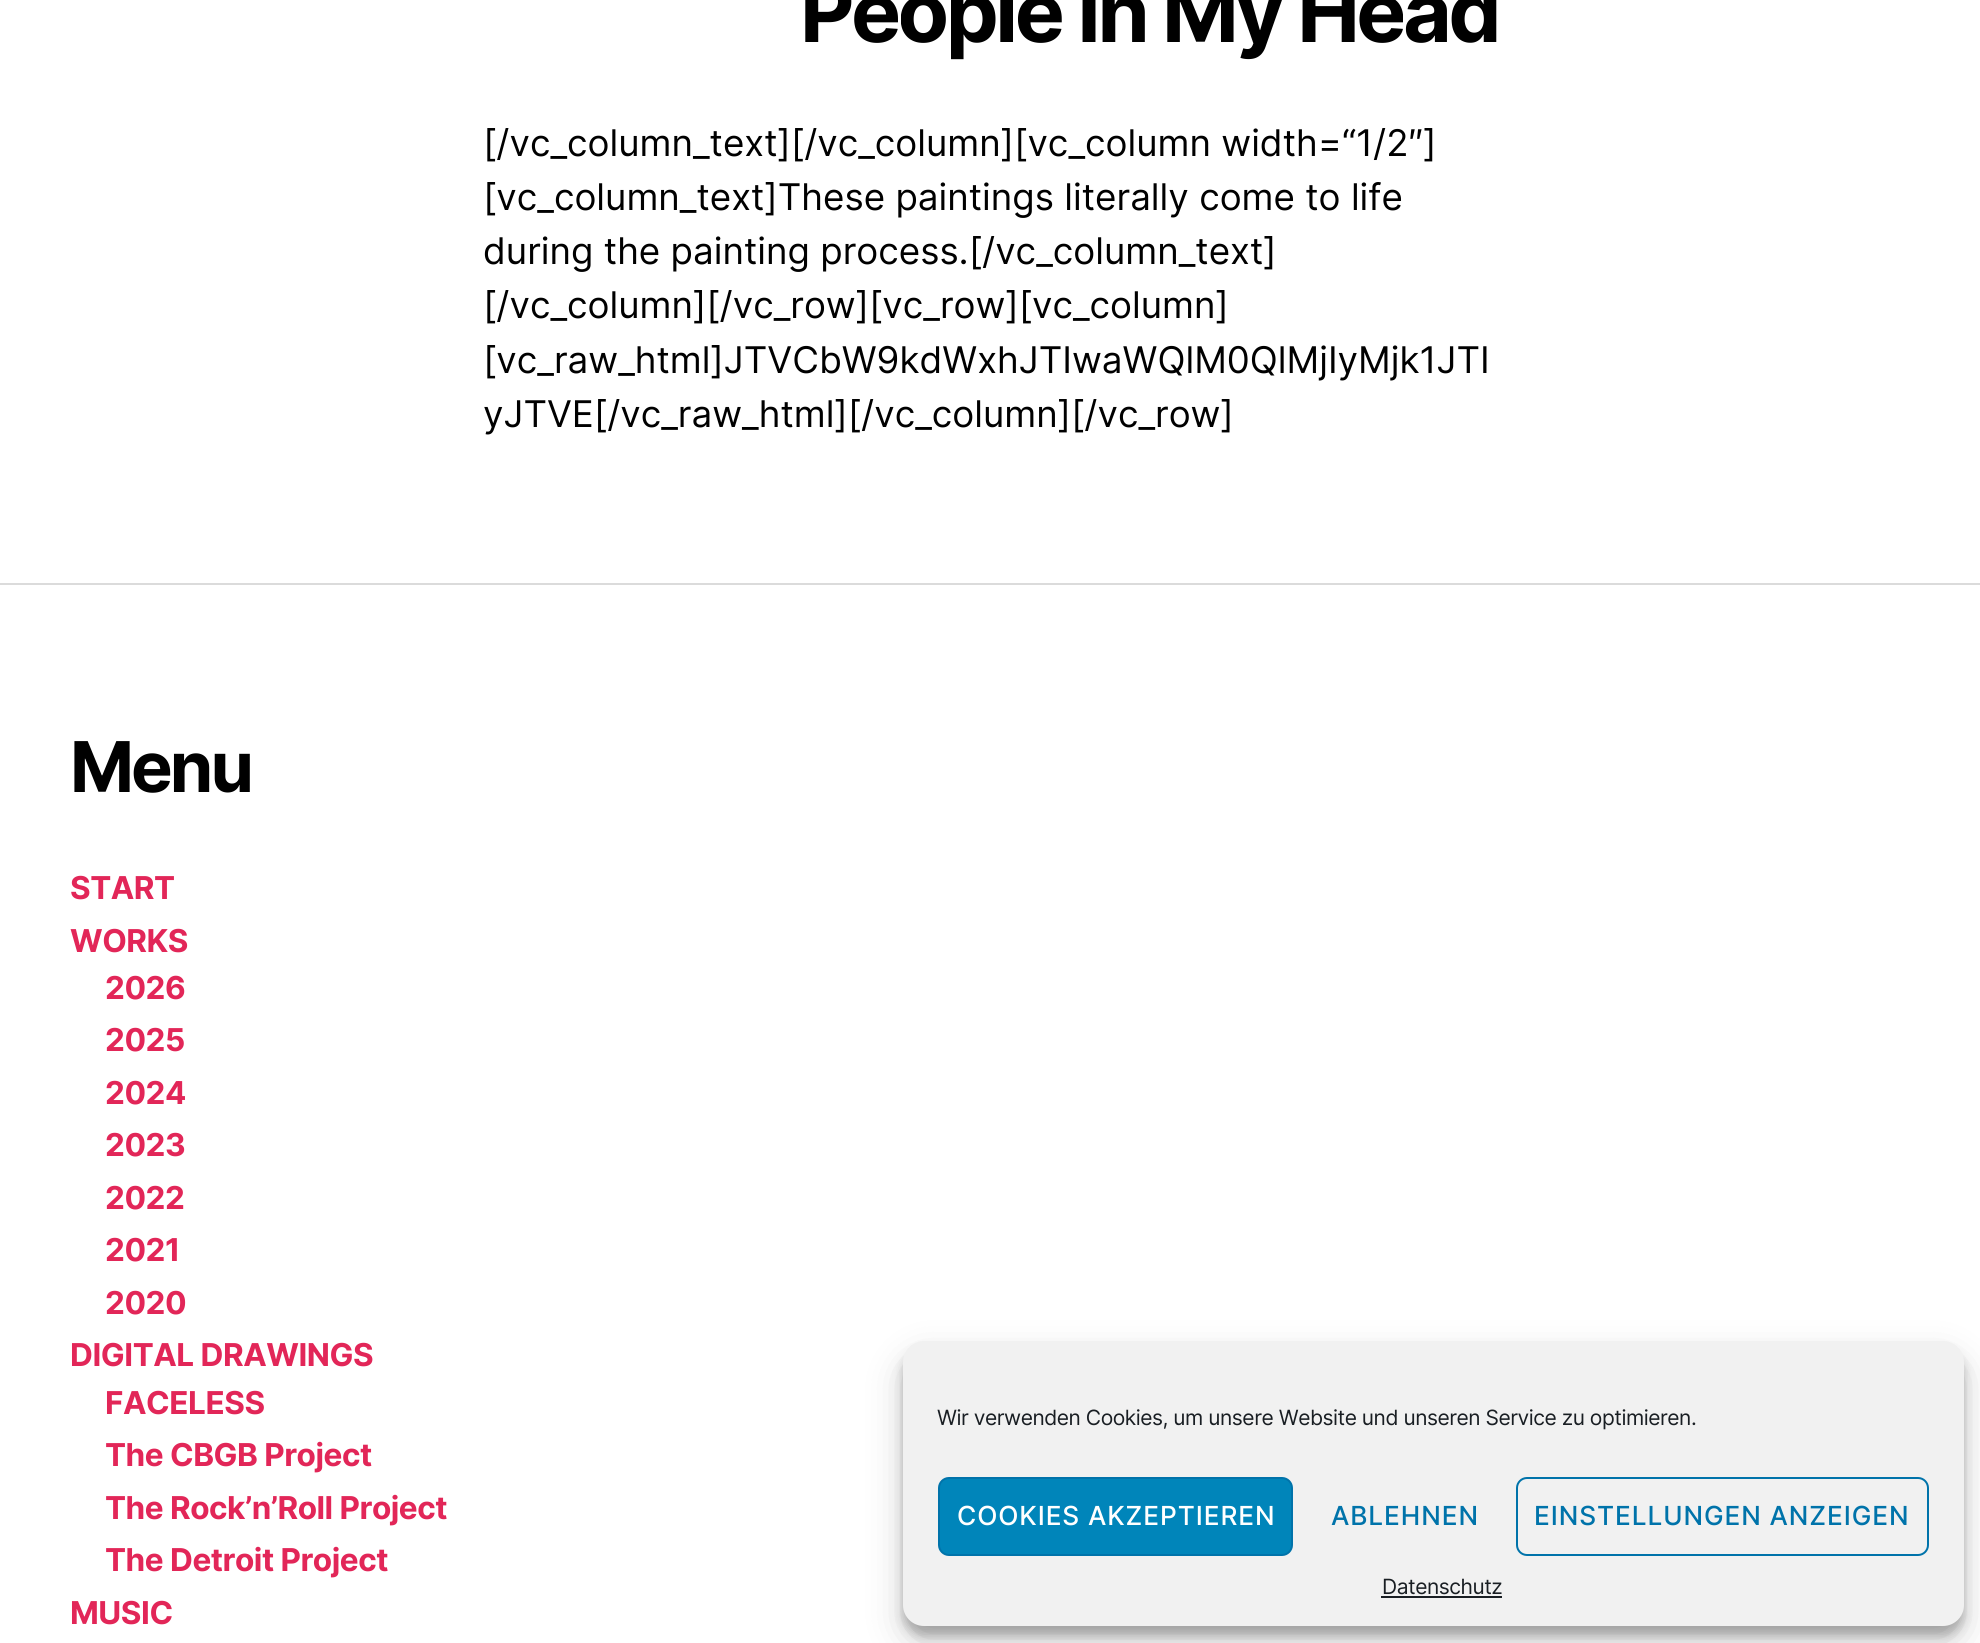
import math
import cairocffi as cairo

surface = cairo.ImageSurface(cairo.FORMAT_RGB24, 1980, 1643)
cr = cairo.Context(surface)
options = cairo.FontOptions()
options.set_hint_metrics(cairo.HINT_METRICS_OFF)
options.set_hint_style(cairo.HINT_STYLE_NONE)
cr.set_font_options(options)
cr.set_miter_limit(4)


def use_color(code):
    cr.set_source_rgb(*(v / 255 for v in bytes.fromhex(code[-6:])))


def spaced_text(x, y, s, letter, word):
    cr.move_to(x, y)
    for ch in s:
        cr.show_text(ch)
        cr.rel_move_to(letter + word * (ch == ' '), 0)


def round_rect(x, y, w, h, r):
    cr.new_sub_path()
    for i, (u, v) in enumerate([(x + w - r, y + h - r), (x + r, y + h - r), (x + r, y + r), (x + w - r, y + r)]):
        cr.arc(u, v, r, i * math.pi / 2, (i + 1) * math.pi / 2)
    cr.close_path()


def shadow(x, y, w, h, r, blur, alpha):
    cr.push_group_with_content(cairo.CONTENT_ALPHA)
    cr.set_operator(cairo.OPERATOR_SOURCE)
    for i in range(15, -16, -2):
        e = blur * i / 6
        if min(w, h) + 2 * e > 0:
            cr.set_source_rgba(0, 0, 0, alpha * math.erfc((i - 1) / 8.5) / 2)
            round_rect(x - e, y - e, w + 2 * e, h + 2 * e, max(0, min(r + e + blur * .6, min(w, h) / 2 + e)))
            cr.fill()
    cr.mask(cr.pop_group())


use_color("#ffffff")
cr.paint()
cr.select_font_face("Inter", cairo.FONT_SLANT_NORMAL, cairo.FONT_WEIGHT_BOLD)
cr.set_font_size(84)
use_color("#000000")
spaced_text(800, 42, "People In My Head", -3.5, 0)
cr.select_font_face("Inter")
cr.set_font_size(36.75)
cr.move_to(483, 156)
cr.show_text("[/vc_column_text][/vc_column][vc_column width=“1/2″]")
cr.move_to(483, 210)
cr.show_text("[vc_column_text]These paintings literally come to life")
cr.move_to(483, 264)
cr.show_text("during the painting process.[/vc_column_text]")
cr.move_to(483, 318)
cr.show_text("[/vc_column][/vc_row][vc_row][vc_column]")
cr.move_to(483, 373)
cr.show_text("[vc_raw_html]JTVCbW9kdWxhJTIwaWQlM0QlMjIyMjk1JTI")
cr.move_to(483, 427)
cr.show_text("yJTVE[/vc_raw_html][/vc_column][/vc_row]")
use_color("#dbdbdb")
cr.rectangle(0, 583, 1980, 2)
cr.fill()
cr.select_font_face("Inter", cairo.FONT_SLANT_NORMAL, cairo.FONT_WEIGHT_BOLD)
cr.set_font_size(70)
use_color("#000000")
spaced_text(70, 792, "Menu", -3, 0)
cr.set_font_size(31.5)
use_color("#e22658")
spaced_text(70, 899, "START", -0.47, 0)
spaced_text(70, 952, "WORKS", -0.47, 0)
spaced_text(105, 999, "2026", -0.47, 0)
spaced_text(105, 1051, "2025", -0.47, 0)
spaced_text(105, 1104, "2024", -0.47, 0)
spaced_text(105, 1156, "2023", -0.47, 0)
spaced_text(105, 1209, "2022", -0.47, 0)
spaced_text(105, 1261, "2021", -0.47, 0)
spaced_text(105, 1314, "2020", -0.47, 0)
spaced_text(70, 1366, "DIGITAL DRAWINGS", -0.47, 0)
spaced_text(105, 1414, "FACELESS", -0.47, 0)
spaced_text(105, 1466, "The CBGB Project", -0.47, 0)
spaced_text(105, 1519, "The Rock’n’Roll Project", -0.47, 0)
spaced_text(105, 1571, "The Detroit Project", -0.47, 0)
spaced_text(70, 1624, "MUSIC", -0.47, 0)
use_color("#000000")
shadow(903, 1351, 1061, 285, 21, 5, 0.23)
shadow(903, 1358, 1061, 285, 21, 17.5, 0.19)
use_color("#f1f1f1")
round_rect(903, 1341, 1061, 285, 21)
cr.fill()
cr.select_font_face("Inter")
cr.set_font_size(21)
use_color("#191e23")
spaced_text(937, 1425, "Wir verwenden Cookies, um unsere Website und unseren Service zu optimieren.", -0.47, 0)
use_color("#0085ba")
round_rect(939, 1478, 353, 77, 10)
cr.fill_preserve()
use_color("#0073aa")
cr.stroke()
cr.select_font_face("Inter Medium")
cr.set_font_size(26.25)
use_color("#ffffff")
spaced_text(957, 1525, "COOKIES AKZEPTIEREN", 0.9, 0)
use_color("#0073aa")
spaced_text(1331, 1525, "ABLEHNEN", 0.9, 0)
round_rect(1517, 1478, 411, 77, 10)
cr.stroke()
spaced_text(1534, 1525, "EINSTELLUNGEN ANZEIGEN", 0.9, 0)
cr.select_font_face("Inter")
cr.set_font_size(21)
use_color("#191e23")
spaced_text(1382, 1594, "Datenschutz", -0.47, 0)
cr.rectangle(1381, 1596, 121, 2)
cr.fill()
surface.write_to_png("result.png")
